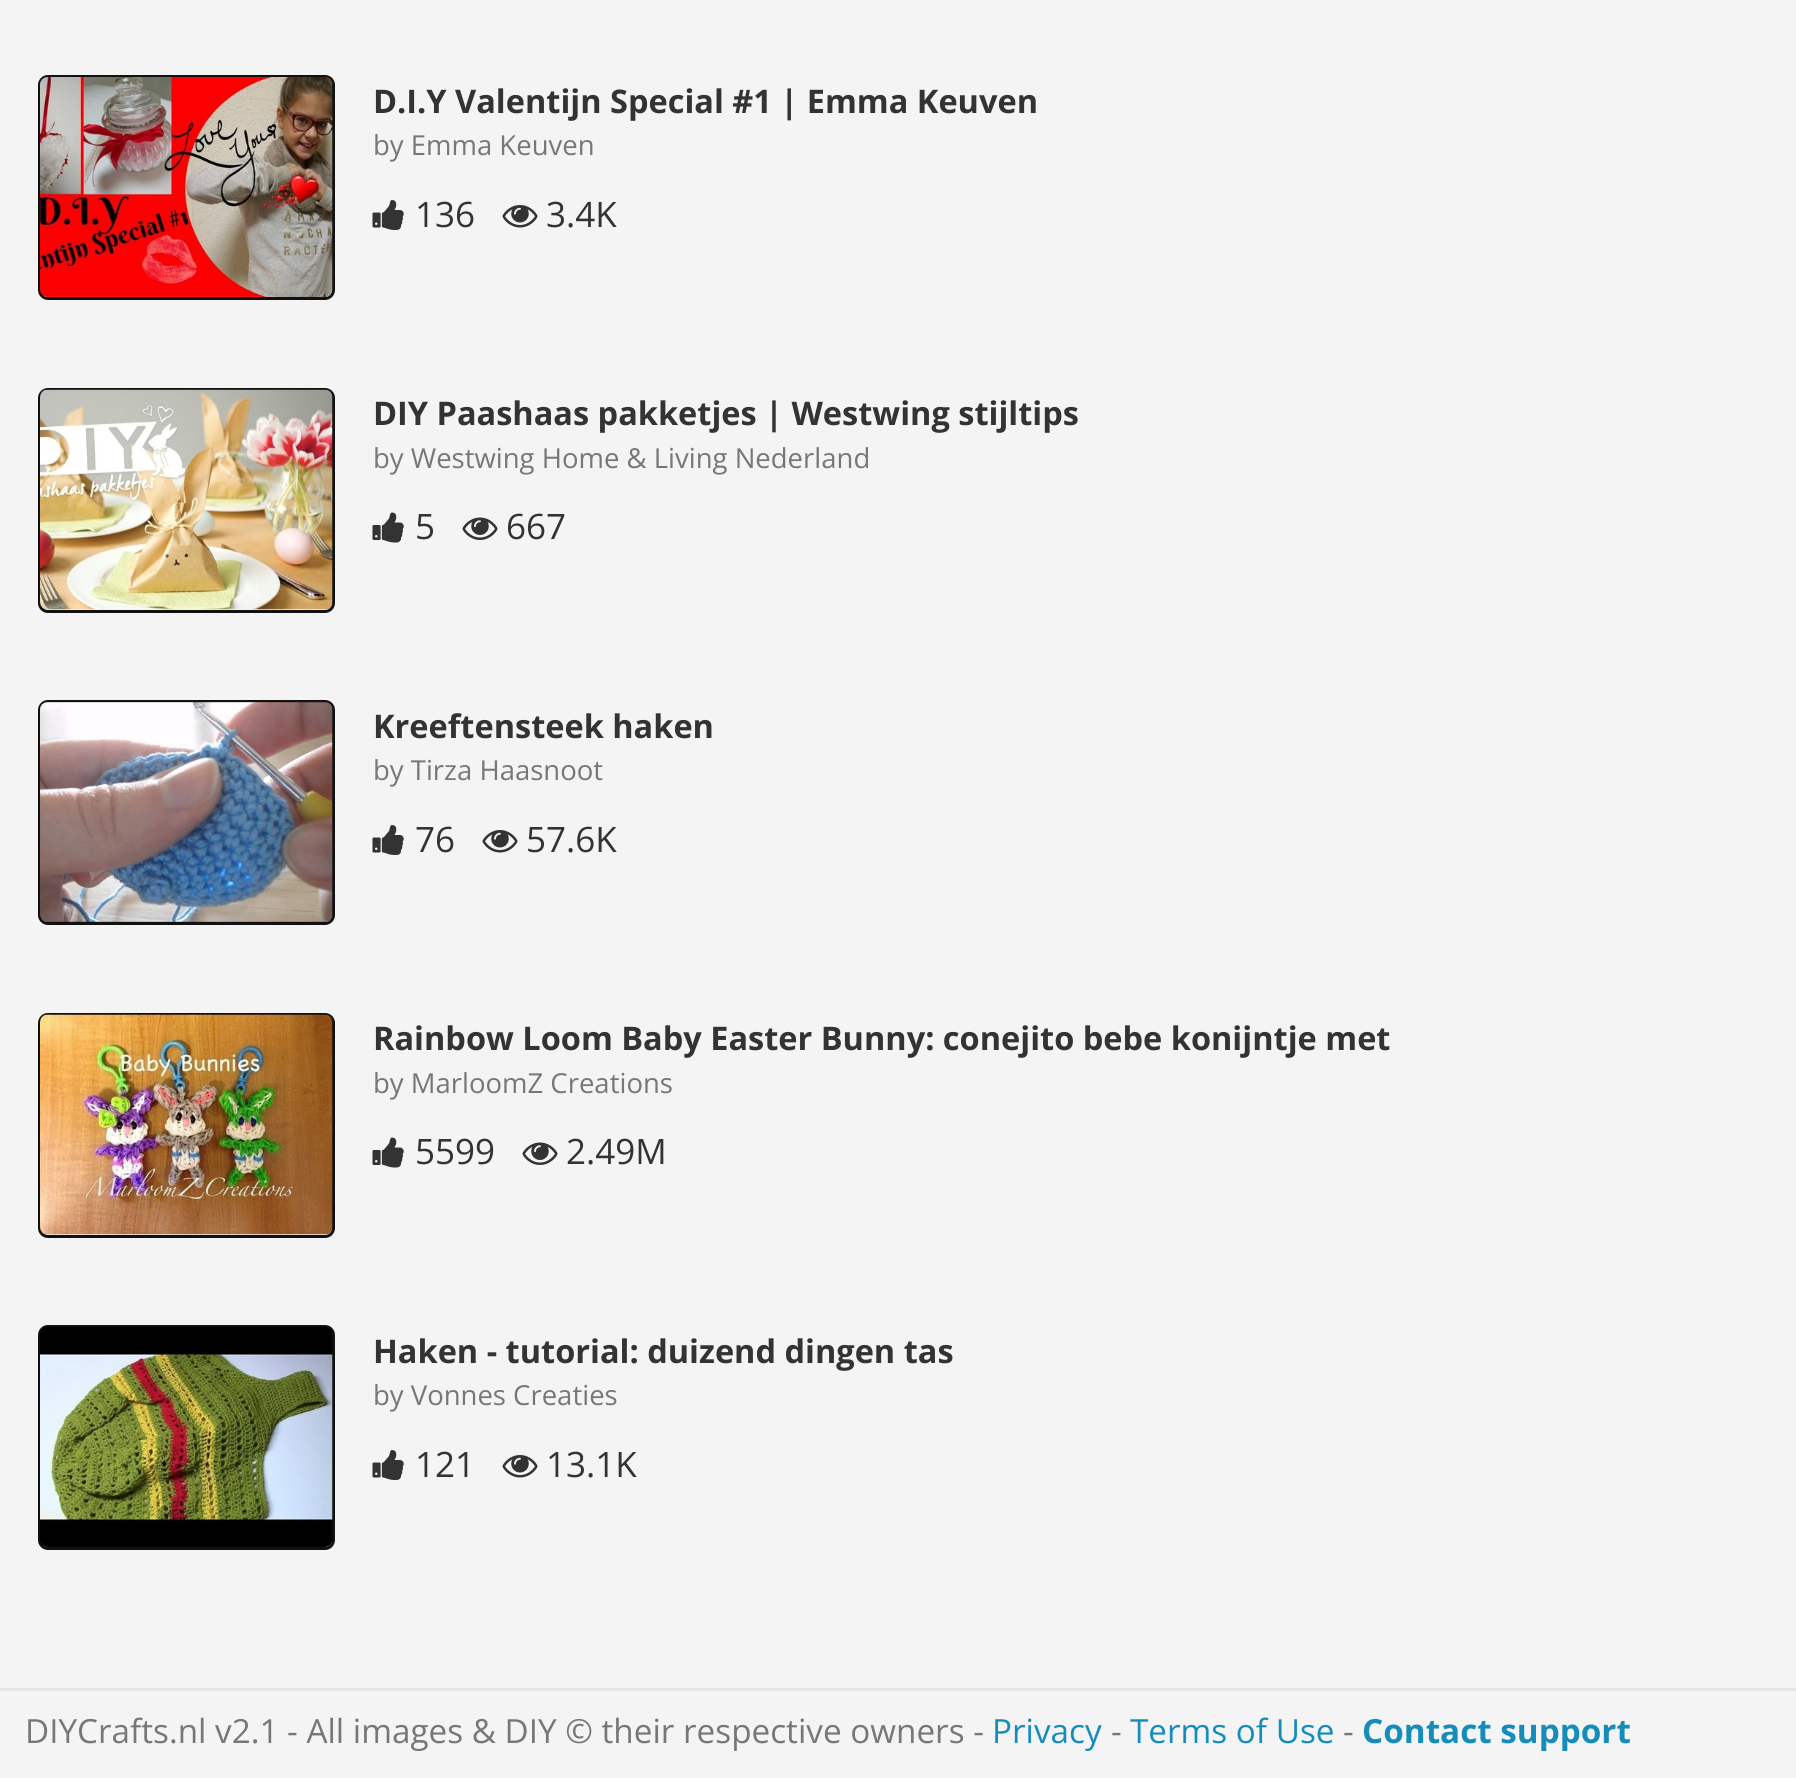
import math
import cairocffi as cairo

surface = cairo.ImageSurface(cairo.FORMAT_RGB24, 1796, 1778)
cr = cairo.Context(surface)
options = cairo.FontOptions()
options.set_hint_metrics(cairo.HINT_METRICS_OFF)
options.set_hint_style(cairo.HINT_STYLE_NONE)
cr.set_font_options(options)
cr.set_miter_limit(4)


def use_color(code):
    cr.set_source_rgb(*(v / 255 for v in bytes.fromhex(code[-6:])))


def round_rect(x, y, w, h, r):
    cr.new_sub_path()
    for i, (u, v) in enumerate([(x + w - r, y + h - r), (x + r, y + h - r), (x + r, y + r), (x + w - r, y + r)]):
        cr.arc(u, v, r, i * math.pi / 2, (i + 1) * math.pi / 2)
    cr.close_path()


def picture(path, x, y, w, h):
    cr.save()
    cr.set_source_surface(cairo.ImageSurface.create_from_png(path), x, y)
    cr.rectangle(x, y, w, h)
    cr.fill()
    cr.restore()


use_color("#f4f4f4")
cr.paint()
round_rect(39.5, 76.5, 294, 222, 8.5)
use_color("#111111")
cr.set_line_width(3)
cr.stroke()
picture("img1.png", 40, 77, 293, 220)
cr.select_font_face("Open Sans", cairo.FONT_SLANT_NORMAL, cairo.FONT_WEIGHT_BOLD)
cr.set_font_size(32.5)
use_color("#333333")
cr.move_to(373, 113)
cr.show_text("D.I.Y Valentijn Special #1 | Emma Keuven")
cr.select_font_face("Open Sans")
cr.set_font_size(27.5)
use_color("#777777")
cr.move_to(373, 155)
cr.show_text("by Emma Keuven")
picture("img2.png", 372, 200, 32, 30)
cr.set_font_size(35)
use_color("#333333")
cr.move_to(415, 227)
cr.show_text("136")
picture("img3.png", 502, 205, 36, 23)
cr.move_to(546, 227)
cr.show_text("3.4K")
round_rect(39.5, 389.5, 294, 222, 8.5)
use_color("#111111")
cr.stroke()
picture("img4.png", 40, 389, 293, 221)
cr.select_font_face("Open Sans", cairo.FONT_SLANT_NORMAL, cairo.FONT_WEIGHT_BOLD)
cr.set_font_size(32.5)
use_color("#333333")
cr.move_to(373, 425)
cr.show_text("DIY Paashaas pakketjes | Westwing stijltips")
cr.select_font_face("Open Sans")
cr.set_font_size(27.5)
use_color("#777777")
cr.move_to(373, 468)
cr.show_text("by Westwing Home & Living Nederland")
picture("img5.png", 372, 512, 32, 31)
cr.set_font_size(35)
use_color("#333333")
cr.move_to(415, 539)
cr.show_text("5")
picture("img6.png", 462, 517, 36, 23)
cr.move_to(506, 539)
cr.show_text("667")
round_rect(39.5, 701.5, 294, 222, 8.5)
use_color("#111111")
cr.stroke()
picture("img7.png", 40, 702, 293, 220)
cr.select_font_face("Open Sans", cairo.FONT_SLANT_NORMAL, cairo.FONT_WEIGHT_BOLD)
cr.set_font_size(32.5)
use_color("#333333")
cr.move_to(373, 738)
cr.show_text("Kreeftensteek haken")
cr.select_font_face("Open Sans")
cr.set_font_size(27.5)
use_color("#777777")
cr.move_to(373, 780)
cr.show_text("by Tirza Haasnoot")
picture("img2.png", 372, 825, 32, 30)
cr.set_font_size(35)
use_color("#333333")
cr.move_to(415, 852)
cr.show_text("76")
picture("img3.png", 482, 830, 36, 23)
cr.move_to(526, 852)
cr.show_text("57.6K")
round_rect(39.5, 1014.5, 294, 222, 8.5)
use_color("#111111")
cr.stroke()
picture("img8.png", 40, 1014, 293, 221)
cr.select_font_face("Open Sans", cairo.FONT_SLANT_NORMAL, cairo.FONT_WEIGHT_BOLD)
cr.set_font_size(32.5)
use_color("#333333")
cr.move_to(373, 1050)
cr.show_text("Rainbow Loom Baby Easter Bunny: conejito bebe konijntje met")
cr.select_font_face("Open Sans")
cr.set_font_size(27.5)
use_color("#777777")
cr.move_to(373, 1093)
cr.show_text("by MarloomZ Creations")
picture("img5.png", 372, 1137, 32, 31)
cr.set_font_size(35)
use_color("#333333")
cr.move_to(415, 1164)
cr.show_text("5599")
picture("img6.png", 522, 1142, 36, 23)
cr.move_to(566, 1164)
cr.show_text("2.49M")
round_rect(39.5, 1326.5, 294, 222, 8.5)
use_color("#111111")
cr.stroke()
picture("img9.png", 40, 1327, 293, 220)
cr.select_font_face("Open Sans", cairo.FONT_SLANT_NORMAL, cairo.FONT_WEIGHT_BOLD)
cr.set_font_size(32.5)
use_color("#333333")
cr.move_to(373, 1363)
cr.show_text("Haken - tutorial: duizend dingen tas")
cr.select_font_face("Open Sans")
cr.set_font_size(27.5)
use_color("#777777")
cr.move_to(373, 1405)
cr.show_text("by Vonnes Creaties")
picture("img2.png", 372, 1450, 32, 30)
cr.set_font_size(35)
use_color("#333333")
cr.move_to(415, 1477)
cr.show_text("121")
picture("img3.png", 502, 1455, 36, 23)
cr.move_to(546, 1477)
cr.show_text("13.1K")
use_color("#e5e5e5")
cr.rectangle(0, 1688, 1796, 3)
cr.fill()
cr.set_font_size(33.25)
use_color("#777777")
cr.move_to(25, 1743)
cr.show_text("DIYCrafts.nl v2.1 - All images & DIY © their respective owners -")
use_color("#158cba")
cr.move_to(992, 1743)
cr.show_text("Privacy")
use_color("#777777")
cr.move_to(1111, 1743)
cr.show_text("-")
use_color("#158cba")
cr.move_to(1130, 1743)
cr.show_text("Terms of Use")
use_color("#777777")
cr.move_to(1343, 1743)
cr.show_text("-")
cr.select_font_face("Open Sans", cairo.FONT_SLANT_NORMAL, cairo.FONT_WEIGHT_BOLD)
use_color("#158cba")
cr.move_to(1362, 1743)
cr.show_text("Contact support")
surface.write_to_png("result.png")
